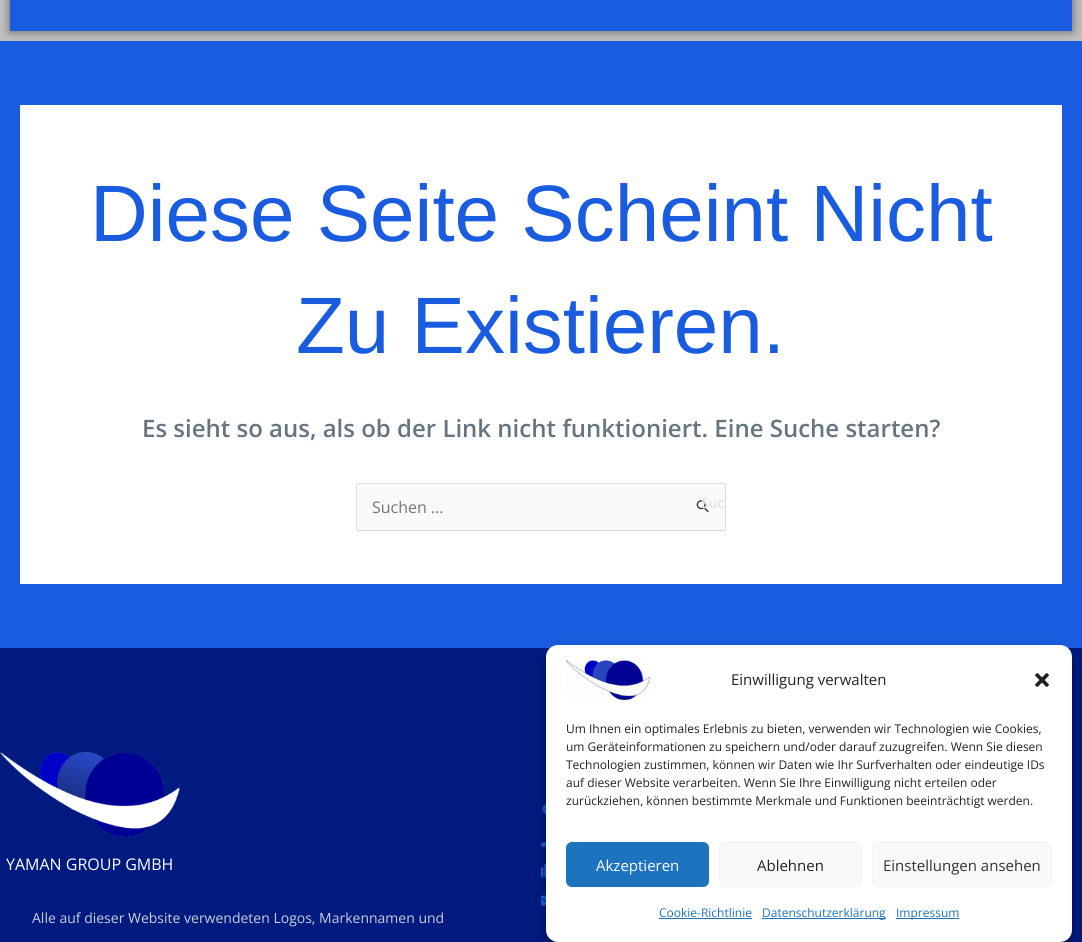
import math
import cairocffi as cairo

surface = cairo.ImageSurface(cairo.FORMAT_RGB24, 1082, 942)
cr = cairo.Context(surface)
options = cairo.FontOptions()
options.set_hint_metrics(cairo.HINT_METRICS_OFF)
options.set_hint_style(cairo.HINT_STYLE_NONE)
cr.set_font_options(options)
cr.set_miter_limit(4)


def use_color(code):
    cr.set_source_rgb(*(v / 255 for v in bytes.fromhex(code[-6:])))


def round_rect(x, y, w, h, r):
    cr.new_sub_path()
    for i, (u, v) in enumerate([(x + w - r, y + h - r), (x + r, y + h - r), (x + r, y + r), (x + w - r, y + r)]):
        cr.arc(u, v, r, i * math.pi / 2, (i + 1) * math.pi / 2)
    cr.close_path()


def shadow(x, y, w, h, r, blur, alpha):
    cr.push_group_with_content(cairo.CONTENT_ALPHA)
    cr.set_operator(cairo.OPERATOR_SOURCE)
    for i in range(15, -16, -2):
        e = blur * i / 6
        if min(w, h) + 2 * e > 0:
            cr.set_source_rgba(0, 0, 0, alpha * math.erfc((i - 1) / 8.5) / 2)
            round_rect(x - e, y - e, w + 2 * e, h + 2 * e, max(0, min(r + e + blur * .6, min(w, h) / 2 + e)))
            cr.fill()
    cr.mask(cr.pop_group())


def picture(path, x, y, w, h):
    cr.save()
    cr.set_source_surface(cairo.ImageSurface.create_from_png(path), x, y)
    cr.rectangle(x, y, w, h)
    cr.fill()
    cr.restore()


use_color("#1a5ce0")
cr.paint()
use_color("#c0c0c0")
cr.rectangle(0, 0, 1082, 41)
cr.fill()
use_color("#000000")
shadow(10, -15, 1062, 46, 0, 5, 0.5)
use_color("#1a5ce0")
cr.rectangle(10, 0, 1062, 31)
cr.fill()
use_color("#ffffff")
cr.rectangle(20, 105, 1042, 479)
cr.fill()
cr.select_font_face("Liberation Sans")
cr.set_font_size(80)
use_color("#1a5ce0")
cr.move_to(90, 241)
cr.show_text("Diese Seite Scheint Nicht")
cr.move_to(296, 353)
cr.show_text("Zu Existieren.")
cr.select_font_face("Open Sans SemiBold")
cr.set_font_size(24)
use_color("#67757f")
cr.move_to(142, 437)
cr.show_text("Es sieht so aus, als ob der Link nicht funktioniert. Eine Suche starten?")
use_color("#fafafa")
round_rect(356.5, 483.5, 369, 47, 1.5)
cr.fill_preserve()
use_color("#dddddd")
cr.set_line_width(1)
cr.stroke()
cr.select_font_face("Open Sans")
cr.set_font_size(16)
use_color("#757575")
cr.move_to(372, 513)
cr.show_text("Suchen …")
picture("img1.png", 696, 500, 13, 13)
cr.select_font_face("Open Sans SemiBold")
cr.set_font_size(14)
use_color("#e5e5e5")
cr.move_to(701, 508)
cr.show_text("Suc")
use_color("#001a80")
cr.rectangle(0, 648, 1082, 294)
cr.fill()
picture("img2.png", 0, 752, 180, 85)
cr.select_font_face("Open Sans")
cr.set_font_size(16)
use_color("#ffffff")
cr.move_to(6, 870)
cr.show_text("YAMAN GROUP GMBH")
cr.set_font_size(14)
use_color("#cad0db")
cr.move_to(32, 923)
cr.show_text("Alle auf dieser Website verwendeten Logos, Markennamen und")
picture("img3.png", 542, 804, 4, 12)
picture("img4.png", 541, 841, 5, 6)
picture("img5.png", 541, 864, 5, 13)
picture("img6.png", 541, 895, 5, 11)
use_color("#000000")
shadow(546, 651, 526, 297, 12, 3, 0.23)
shadow(546, 655, 526, 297, 12, 10, 0.19)
use_color("#ffffff")
round_rect(546, 645, 526, 297, 12)
cr.fill()
picture("img7.png", 566, 660, 84, 40)
cr.set_font_size(15)
use_color("#222222")
cr.move_to(731, 685)
cr.show_text("Einwilligung verwalten")
picture("img8.png", 1035, 673, 14, 14)
cr.set_font_size(12)
cr.move_to(566, 733)
cr.show_text("Um Ihnen ein optimales Erlebnis zu bieten, verwenden wir Technologien wie Cookies,")
cr.move_to(566, 751)
cr.show_text("um Geräteinformationen zu speichern und/oder darauf zuzugreifen. Wenn Sie diesen")
cr.move_to(566, 769)
cr.show_text("Technologien zustimmen, können wir Daten wie Ihr Surfverhalten oder eindeutige IDs")
cr.move_to(566, 787)
cr.show_text("auf dieser Website verarbeiten. Wenn Sie Ihre Einwilligung nicht erteilen oder")
cr.move_to(566, 805)
cr.show_text("zurückziehen, können bestimmte Merkmale und Funktionen beeinträchtigt werden.")
use_color("#1e73be")
round_rect(566.5, 842.5, 142, 44, 5.5)
cr.fill_preserve()
cr.stroke()
cr.set_font_size(15)
use_color("#ffffff")
cr.move_to(596, 871)
cr.show_text("Akzeptieren")
use_color("#f9f9f9")
round_rect(719.5, 842.5, 142, 44, 5.5)
cr.fill_preserve()
use_color("#f2f2f2")
cr.stroke()
use_color("#222222")
cr.move_to(757, 871)
cr.show_text("Ablehnen")
use_color("#f9f9f9")
round_rect(872.5, 842.5, 179, 44, 5.5)
cr.fill_preserve()
use_color("#f2f2f2")
cr.stroke()
use_color("#333333")
cr.move_to(883, 871)
cr.show_text("Einstellungen ansehen")
cr.set_font_size(12)
use_color("#1e73be")
cr.move_to(659, 917)
cr.show_text("Cookie-Richtlinie")
cr.rectangle(659, 918, 93, 1)
cr.fill()
cr.rectangle(762, 918, 124, 1)
cr.fill()
cr.move_to(762, 917)
cr.show_text("Datenschutzerklärung")
cr.rectangle(896, 918, 63, 1)
cr.fill()
cr.move_to(896, 917)
cr.show_text("Impressum")
surface.write_to_png("result.png")
